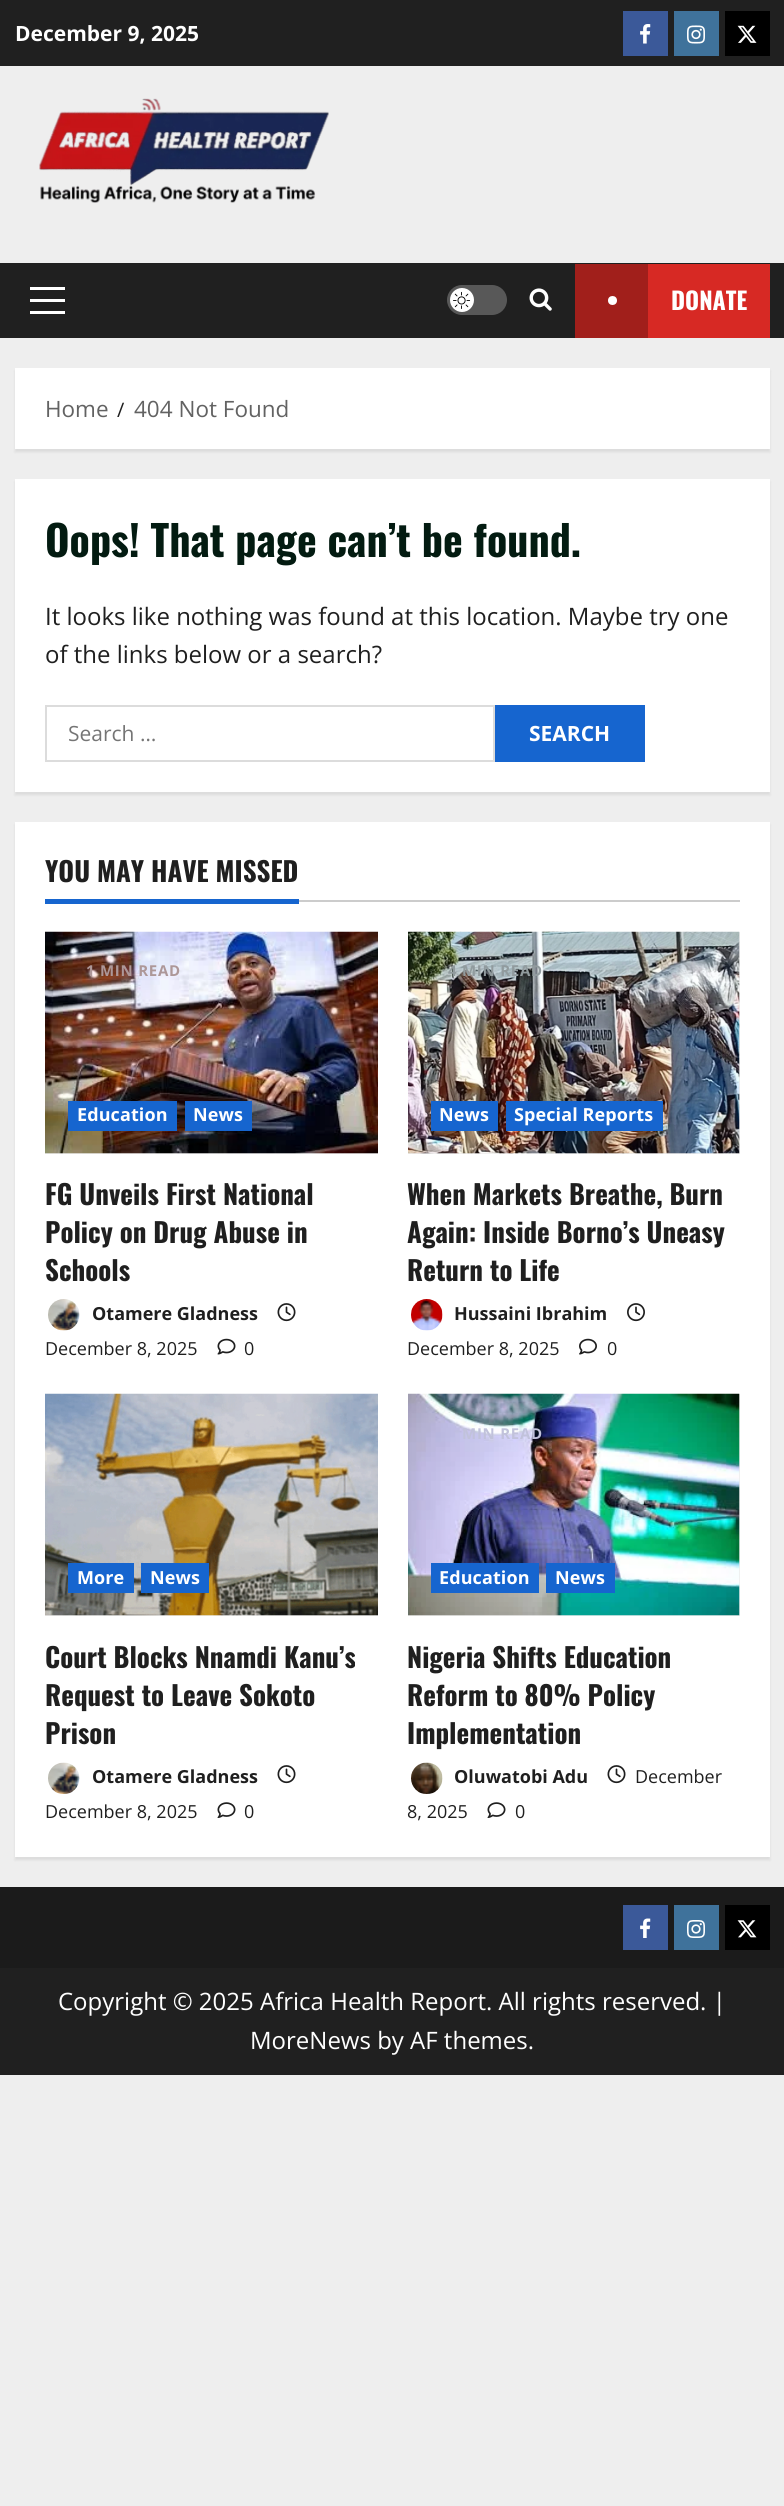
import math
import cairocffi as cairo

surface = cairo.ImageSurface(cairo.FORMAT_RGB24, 784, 2506)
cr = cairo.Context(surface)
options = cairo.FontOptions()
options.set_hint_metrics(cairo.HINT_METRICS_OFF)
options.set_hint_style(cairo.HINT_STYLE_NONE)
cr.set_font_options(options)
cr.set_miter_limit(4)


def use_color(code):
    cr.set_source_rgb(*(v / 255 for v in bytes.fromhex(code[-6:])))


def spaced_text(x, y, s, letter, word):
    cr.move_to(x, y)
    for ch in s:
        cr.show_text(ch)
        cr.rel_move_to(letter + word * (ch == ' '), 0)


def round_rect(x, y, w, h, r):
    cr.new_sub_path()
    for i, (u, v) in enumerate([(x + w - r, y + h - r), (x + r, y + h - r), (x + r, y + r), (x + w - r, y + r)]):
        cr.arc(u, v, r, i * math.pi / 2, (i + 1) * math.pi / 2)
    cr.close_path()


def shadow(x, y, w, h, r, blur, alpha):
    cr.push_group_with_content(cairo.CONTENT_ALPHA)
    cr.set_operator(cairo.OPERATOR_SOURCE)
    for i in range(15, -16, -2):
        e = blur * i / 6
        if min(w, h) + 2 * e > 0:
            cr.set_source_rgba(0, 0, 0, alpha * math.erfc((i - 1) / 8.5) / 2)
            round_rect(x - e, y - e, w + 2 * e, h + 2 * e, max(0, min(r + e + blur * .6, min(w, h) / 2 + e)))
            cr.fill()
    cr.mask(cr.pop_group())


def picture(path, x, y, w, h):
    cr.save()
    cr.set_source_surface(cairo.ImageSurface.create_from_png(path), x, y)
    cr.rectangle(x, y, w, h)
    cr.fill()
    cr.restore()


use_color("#eeeeee")
cr.paint()
use_color("#202020")
cr.rectangle(0, 0, 784, 66)
cr.fill()
cr.select_font_face("Open Sans", cairo.FONT_SLANT_NORMAL, cairo.FONT_WEIGHT_BOLD)
cr.set_font_size(21)
use_color("#ffffff")
cr.move_to(15, 41)
cr.show_text("December 9, 2025")
use_color("#3b5999")
cr.rectangle(623, 11, 45, 45)
cr.fill()
picture("img1.png", 640, 24, 11, 20)
use_color("#3f729b")
cr.rectangle(674, 11, 45, 45)
cr.fill()
picture("img2.png", 687, 25, 18, 19)
use_color("#000000")
cr.rectangle(725, 11, 45, 45)
cr.fill()
picture("img3.png", 737, 25, 20, 18)
picture("img4.png", 39, 98, 290, 105)
use_color("#202020")
cr.rectangle(0, 263, 784, 75)
cr.fill()
use_color("#ffffff")
cr.rectangle(30, 299, 35, 3)
cr.fill()
cr.rectangle(30, 287, 35, 3)
cr.fill()
cr.rectangle(30, 311, 35, 3)
cr.fill()
use_color("#585858")
round_rect(447, 285, 60, 30, 15)
cr.fill()
use_color("#ffffff")
cr.arc(462, 300, 12, 0, 2 * math.pi)
cr.fill()
picture("img5.png", 453, 291, 18, 18)
picture("img6.png", 529, 288, 23, 23)
use_color("#d72924")
cr.rectangle(648, 264, 122, 74)
cr.fill()
use_color("#a11f1b")
cr.rectangle(575, 264, 73, 74)
cr.fill()
use_color("#ffffff")
cr.arc(612.5, 300.5, 4.5, 0, 2 * math.pi)
cr.fill()
cr.select_font_face("Oswald", cairo.FONT_SLANT_NORMAL, cairo.FONT_WEIGHT_BOLD)
cr.set_font_size(24)
cr.move_to(671, 310)
cr.show_text("DONATE")
use_color("#000000")
shadow(15, 371, 755, 81, 0, 1.5, 0.08)
use_color("#ffffff")
cr.rectangle(15, 368, 755, 81)
cr.fill()
cr.select_font_face("Open Sans")
cr.set_font_size(22.5)
use_color("#626262")
cr.move_to(45, 417)
cr.show_text("Home")
cr.set_font_size(20)
use_color("#1f1f1f")
cr.move_to(117, 417)
cr.show_text("/")
cr.set_font_size(22.5)
use_color("#626262")
cr.move_to(134, 417)
cr.show_text("404 Not Found")
use_color("#000000")
shadow(15, 482, 755, 313, 0, 1.5, 0.08)
use_color("#ffffff")
cr.rectangle(15, 479, 755, 313)
cr.fill()
cr.select_font_face("Oswald", cairo.FONT_SLANT_NORMAL, cairo.FONT_WEIGHT_BOLD)
cr.set_font_size(42)
use_color("#031b11")
cr.move_to(45, 557)
cr.show_text("Oops! That page can’t be found.")
cr.select_font_face("Open Sans")
cr.set_font_size(24)
use_color("#1f1f1f")
cr.move_to(45, 625)
cr.show_text("It looks like nothing was found at this location. Maybe try one")
cr.move_to(45, 663)
cr.show_text("of the links below or a search?")
cr.rectangle(46, 706, 448, 55)
use_color("#dcdcdc")
cr.stroke()
cr.set_font_size(21)
use_color("#757575")
cr.move_to(68, 741)
cr.show_text("Search …")
use_color("#1665cf")
cr.rectangle(495, 705, 150, 57)
cr.fill()
cr.select_font_face("Open Sans", cairo.FONT_SLANT_NORMAL, cairo.FONT_WEIGHT_BOLD)
use_color("#ffffff")
cr.move_to(529, 741)
cr.show_text("SEARCH")
use_color("#000000")
shadow(15, 825, 755, 1035, 0, 1.5, 0.08)
use_color("#ffffff")
cr.rectangle(15, 822, 755, 1035)
cr.fill()
use_color("#cccccc")
cr.rectangle(299, 900, 441, 2)
cr.fill()
cr.select_font_face("Oswald", cairo.FONT_SLANT_NORMAL, cairo.FONT_WEIGHT_BOLD)
cr.set_font_size(27)
use_color("#1f1f1f")
cr.move_to(45, 882)
cr.show_text("YOU MAY HAVE MISSED")
use_color("#1665cf")
cr.rectangle(45, 899, 254, 5)
cr.fill()
use_color("#ececec")
cr.rectangle(45, 1153, 333, 1)
cr.fill()
picture("img7.png", 45, 931, 333, 223)
cr.select_font_face("Open Sans", cairo.FONT_SLANT_NORMAL, cairo.FONT_WEIGHT_BOLD)
cr.set_font_size(15)
use_color("#ad9798")
spaced_text(86, 976, "1 MIN READ", 0.75, 0)
use_color("#1665cf")
cr.rectangle(68, 1101, 109, 30)
cr.fill()
cr.set_font_size(18)
use_color("#ffffff")
spaced_text(77, 1121, "Education", 0.1, 0)
use_color("#1665cf")
cr.rectangle(185, 1101, 67, 30)
cr.fill()
use_color("#ffffff")
spaced_text(193, 1121, "News", 0.1, 0)
cr.select_font_face("Oswald", cairo.FONT_SLANT_NORMAL, cairo.FONT_WEIGHT_BOLD)
cr.set_font_size(27)
use_color("#1f1f1f")
cr.move_to(45, 1205)
cr.show_text("FG Unveils First National")
cr.move_to(45, 1243)
cr.show_text("Policy on Drug Abuse in")
cr.move_to(45, 1281)
cr.show_text("Schools")
picture("img8.png", 48, 1299, 32, 32)
cr.select_font_face("Open Sans", cairo.FONT_SLANT_NORMAL, cairo.FONT_WEIGHT_BOLD)
cr.set_font_size(18)
cr.move_to(92, 1320)
cr.show_text("Otamere Gladness")
picture("img9.png", 277, 1303, 19, 19)
cr.select_font_face("Open Sans")
cr.move_to(45, 1355)
cr.show_text("December 8, 2025")
picture("img10.png", 217, 1338, 19, 17)
cr.move_to(244, 1355)
cr.show_text("0")
use_color("#ececec")
cr.rectangle(408, 932, 332, 222)
cr.fill()
picture("img11.png", 408, 931, 332, 223)
cr.select_font_face("Open Sans", cairo.FONT_SLANT_NORMAL, cairo.FONT_WEIGHT_BOLD)
cr.set_font_size(15)
use_color("#919b9e")
spaced_text(448, 976, "4 MIN READ", 0.75, 0)
use_color("#1665cf")
cr.rectangle(431, 1101, 67, 30)
cr.fill()
cr.set_font_size(18)
use_color("#ffffff")
spaced_text(439, 1121, "News", 0.1, 0)
use_color("#1665cf")
cr.rectangle(506, 1101, 157, 30)
cr.fill()
use_color("#ffffff")
spaced_text(514, 1121, "Special Reports", 0.1, 0)
cr.select_font_face("Oswald", cairo.FONT_SLANT_NORMAL, cairo.FONT_WEIGHT_BOLD)
cr.set_font_size(27)
use_color("#1f1f1f")
cr.move_to(407, 1205)
cr.show_text("When Markets Breathe, Burn")
cr.move_to(407, 1243)
cr.show_text("Again: Inside Borno’s Uneasy")
cr.move_to(407, 1281)
cr.show_text("Return to Life")
picture("img12.png", 411, 1299, 32, 32)
cr.select_font_face("Open Sans", cairo.FONT_SLANT_NORMAL, cairo.FONT_WEIGHT_BOLD)
cr.set_font_size(18)
cr.move_to(454, 1320)
cr.show_text("Hussaini Ibrahim")
picture("img13.png", 627, 1303, 18, 19)
cr.select_font_face("Open Sans")
cr.move_to(407, 1355)
cr.show_text("December 8, 2025")
picture("img14.png", 579, 1338, 18, 17)
cr.move_to(607, 1355)
cr.show_text("0")
use_color("#ececec")
cr.rectangle(45, 1615, 333, 1)
cr.fill()
picture("img15.png", 45, 1393, 333, 223)
use_color("#1665cf")
cr.rectangle(68, 1563, 66, 30)
cr.fill()
cr.select_font_face("Open Sans", cairo.FONT_SLANT_NORMAL, cairo.FONT_WEIGHT_BOLD)
use_color("#ffffff")
spaced_text(77, 1584, "More", 0.1, 0)
use_color("#1665cf")
cr.rectangle(141, 1563, 68, 30)
cr.fill()
use_color("#ffffff")
spaced_text(150, 1584, "News", 0.1, 0)
cr.select_font_face("Oswald", cairo.FONT_SLANT_NORMAL, cairo.FONT_WEIGHT_BOLD)
cr.set_font_size(27)
use_color("#1f1f1f")
cr.move_to(45, 1668)
cr.show_text("Court Blocks Nnamdi Kanu’s")
cr.move_to(45, 1706)
cr.show_text("Request to Leave Sokoto")
cr.move_to(45, 1744)
cr.show_text("Prison")
picture("img16.png", 48, 1762, 32, 32)
cr.select_font_face("Open Sans", cairo.FONT_SLANT_NORMAL, cairo.FONT_WEIGHT_BOLD)
cr.set_font_size(18)
cr.move_to(92, 1783)
cr.show_text("Otamere Gladness")
picture("img9.png", 277, 1765, 19, 19)
cr.select_font_face("Open Sans")
cr.move_to(45, 1818)
cr.show_text("December 8, 2025")
picture("img17.png", 217, 1802, 19, 16)
cr.move_to(244, 1818)
cr.show_text("0")
use_color("#ececec")
cr.rectangle(408, 1394, 332, 222)
cr.fill()
picture("img18.png", 408, 1393, 332, 223)
cr.select_font_face("Open Sans", cairo.FONT_SLANT_NORMAL, cairo.FONT_WEIGHT_BOLD)
cr.set_font_size(15)
use_color("#c1c2db")
spaced_text(462, 1439, "MIN READ", 0.75, 0)
use_color("#1665cf")
cr.rectangle(431, 1563, 108, 30)
cr.fill()
cr.set_font_size(18)
use_color("#ffffff")
spaced_text(439, 1584, "Education", 0.1, 0)
use_color("#1665cf")
cr.rectangle(546, 1563, 69, 30)
cr.fill()
use_color("#ffffff")
spaced_text(555, 1584, "News", 0.1, 0)
cr.select_font_face("Oswald", cairo.FONT_SLANT_NORMAL, cairo.FONT_WEIGHT_BOLD)
cr.set_font_size(27)
use_color("#1f1f1f")
cr.move_to(407, 1668)
cr.show_text("Nigeria Shifts Education")
cr.move_to(407, 1706)
cr.show_text("Reform to 80% Policy")
cr.move_to(407, 1744)
cr.show_text("Implementation")
picture("img19.png", 411, 1762, 32, 32)
cr.select_font_face("Open Sans", cairo.FONT_SLANT_NORMAL, cairo.FONT_WEIGHT_BOLD)
cr.set_font_size(18)
cr.move_to(454, 1783)
cr.show_text("Oluwatobi Adu")
picture("img9.png", 607, 1765, 19, 19)
cr.select_font_face("Open Sans")
cr.move_to(635, 1783)
cr.show_text("December")
cr.move_to(407, 1818)
cr.show_text("8, 2025")
picture("img17.png", 487, 1802, 19, 16)
cr.move_to(515, 1818)
cr.show_text("0")
use_color("#202020")
cr.rectangle(0, 1968, 784, 107)
cr.fill()
use_color("#1b1b1b")
cr.rectangle(0, 1887, 784, 81)
cr.fill()
use_color("#3b5999")
cr.rectangle(623, 1905, 45, 45)
cr.fill()
picture("img20.png", 640, 1918, 11, 20)
use_color("#3f729b")
cr.rectangle(674, 1905, 45, 45)
cr.fill()
picture("img21.png", 687, 1920, 18, 18)
use_color("#000000")
cr.rectangle(725, 1905, 45, 45)
cr.fill()
picture("img22.png", 737, 1920, 20, 18)
cr.set_font_size(24)
use_color("#ffffff")
cr.move_to(58, 2010)
cr.show_text("Copyright © 2025 Africa Health Report. All rights reserved. |")
cr.move_to(250, 2049)
cr.show_text("MoreNews by AF themes.")
surface.write_to_png("result.png")
